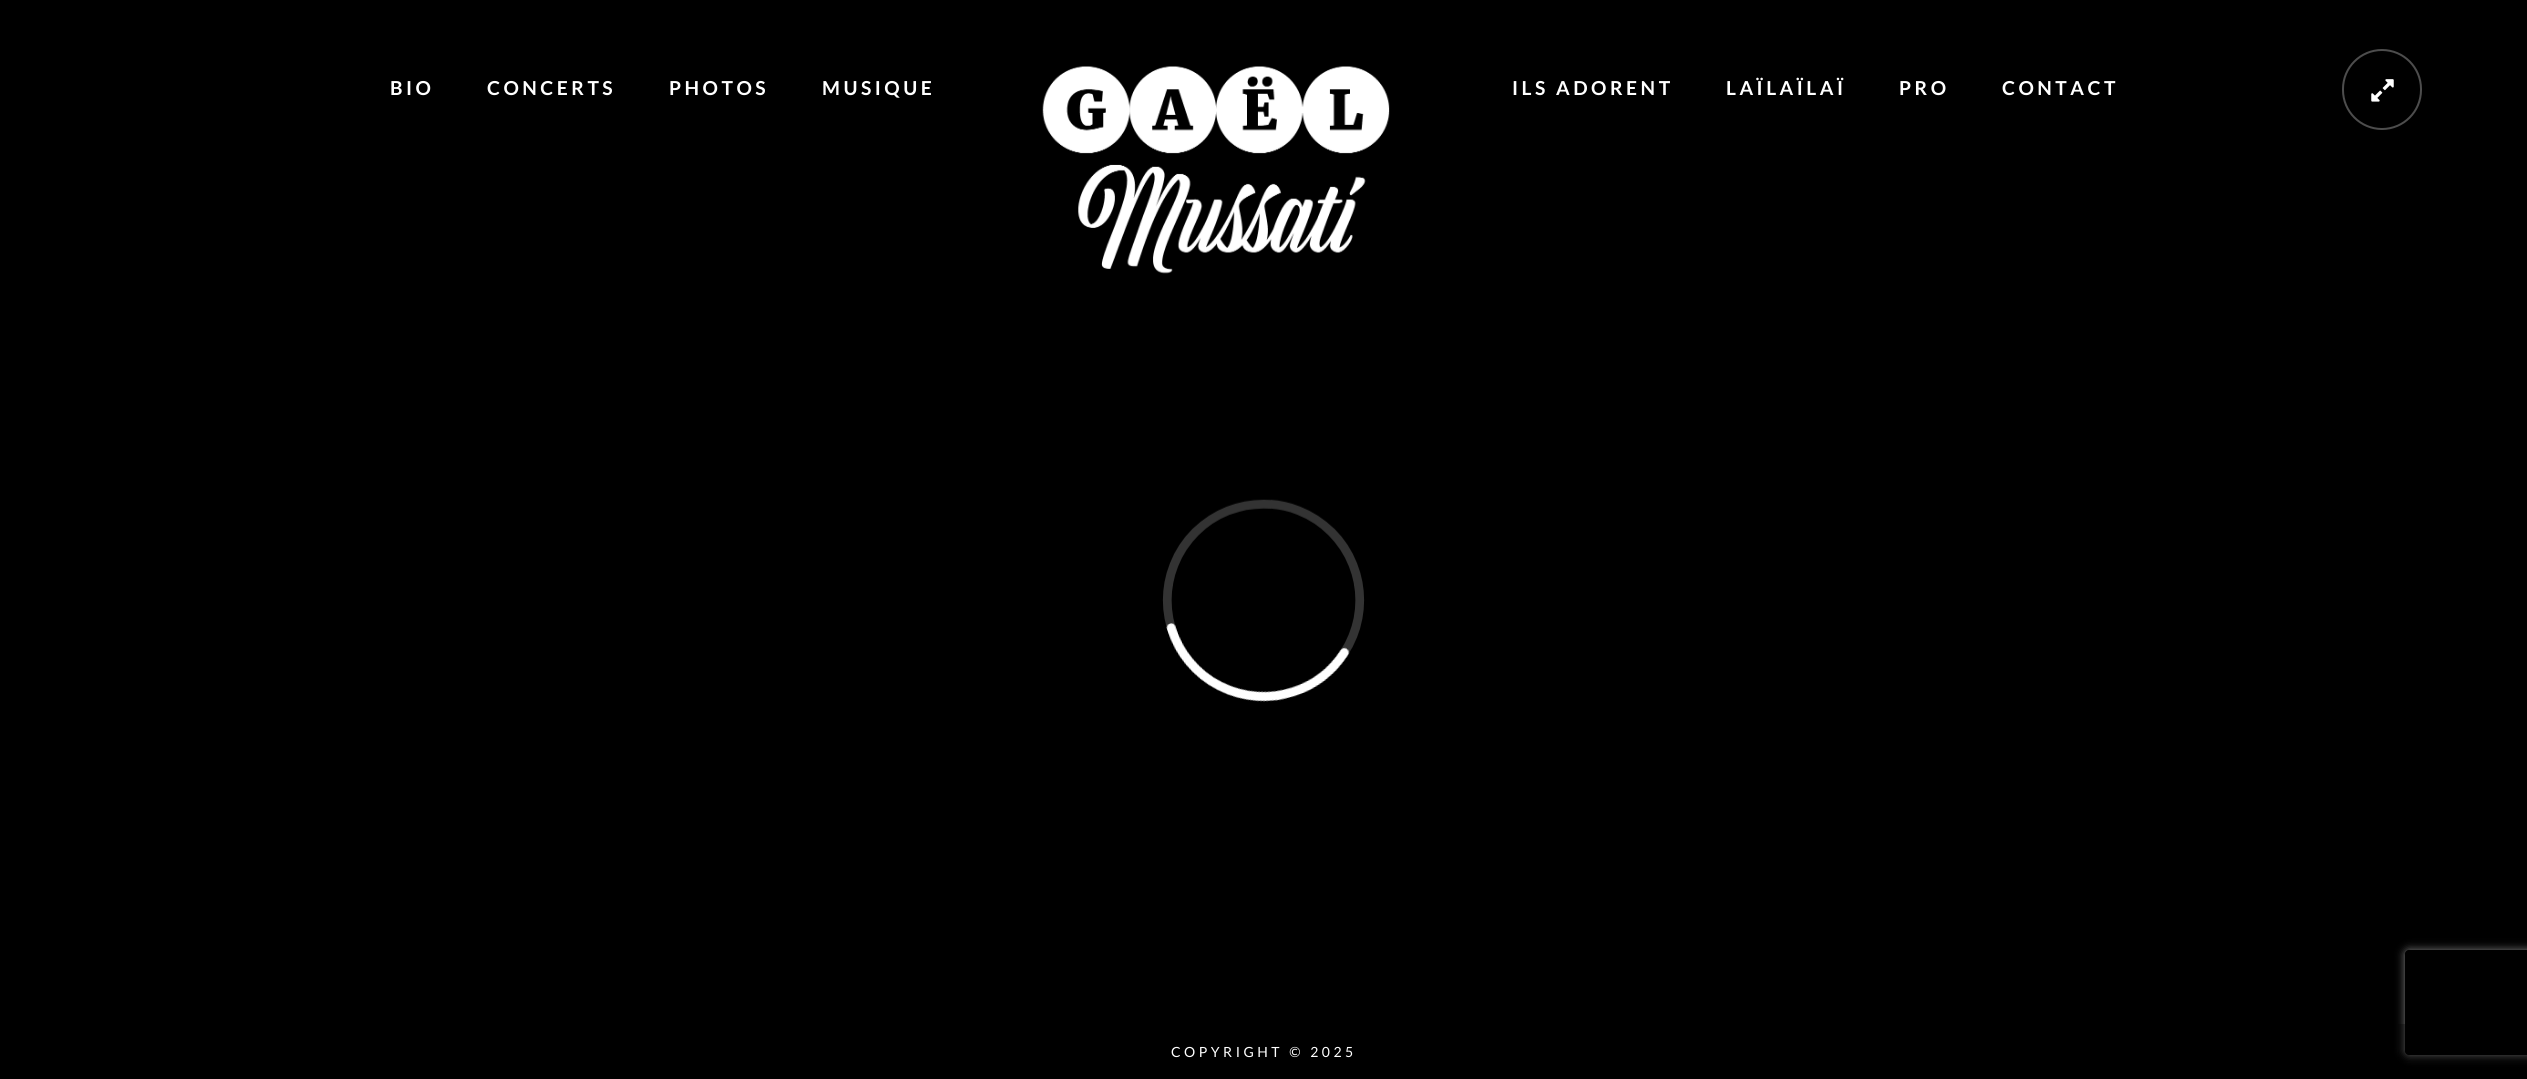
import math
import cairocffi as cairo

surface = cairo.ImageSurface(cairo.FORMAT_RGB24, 2527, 1079)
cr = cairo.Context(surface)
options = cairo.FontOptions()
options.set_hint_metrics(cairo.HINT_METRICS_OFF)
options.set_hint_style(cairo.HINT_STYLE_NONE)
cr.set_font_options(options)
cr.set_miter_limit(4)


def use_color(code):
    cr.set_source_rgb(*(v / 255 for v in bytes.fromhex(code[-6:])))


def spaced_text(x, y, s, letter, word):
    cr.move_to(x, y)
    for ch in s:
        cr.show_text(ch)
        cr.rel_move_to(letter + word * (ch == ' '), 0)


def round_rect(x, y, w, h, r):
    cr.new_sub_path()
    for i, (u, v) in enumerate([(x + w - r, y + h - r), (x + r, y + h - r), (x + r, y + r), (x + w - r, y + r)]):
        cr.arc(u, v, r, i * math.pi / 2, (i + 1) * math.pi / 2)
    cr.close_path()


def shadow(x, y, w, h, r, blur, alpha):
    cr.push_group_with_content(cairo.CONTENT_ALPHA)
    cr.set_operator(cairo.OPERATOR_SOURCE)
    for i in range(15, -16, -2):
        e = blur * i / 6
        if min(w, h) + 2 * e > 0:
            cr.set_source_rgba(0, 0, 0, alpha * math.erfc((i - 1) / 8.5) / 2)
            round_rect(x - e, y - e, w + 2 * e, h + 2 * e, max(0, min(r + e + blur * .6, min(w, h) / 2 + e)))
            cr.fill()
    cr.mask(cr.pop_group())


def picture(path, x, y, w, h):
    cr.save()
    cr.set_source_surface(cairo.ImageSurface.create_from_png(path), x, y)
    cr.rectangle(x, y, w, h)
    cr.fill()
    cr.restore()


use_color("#000000")
cr.paint()
cr.select_font_face("Lato", cairo.FONT_SLANT_NORMAL, cairo.FONT_WEIGHT_BOLD)
cr.set_font_size(19.25)
use_color("#ffffff")
spaced_text(390, 95, "BIO", 3.5, 0)
spaced_text(487, 95, "CONCERTS", 3.5, 0)
spaced_text(669, 95, "PHOTOS", 3.5, 0)
spaced_text(822, 95, "MUSIQUE", 3.5, 0)
picture("img1.png", 1042, 66, 348, 208)
spaced_text(1512, 95, "ILS ADORENT", 3.5, 0)
spaced_text(1726, 95, "LAÏLAÏLAÏ", 3.5, 0)
spaced_text(1899, 95, "PRO", 3.5, 0)
spaced_text(2002, 95, "CONTACT", 3.5, 0)
round_rect(2343, 50, 78, 79, 39)
use_color("#4d4d4d")
cr.stroke()
picture("img2.png", 2371, 79, 23, 23)
picture("img3.png", 1162, 499, 203, 203)
cr.save()
cr.set_fill_rule(cairo.FILL_RULE_EVEN_ODD)
cr.new_path()
cr.move_to(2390, 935)
cr.line_to(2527, 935)
cr.line_to(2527, 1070)
cr.line_to(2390, 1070)
cr.close_path()
cr.move_to(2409, 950)
cr.line_to(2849, 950)
cr.curve_to(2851, 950, 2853, 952, 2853, 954)
cr.line_to(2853, 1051)
cr.curve_to(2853, 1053, 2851, 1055, 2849, 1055)
cr.line_to(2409, 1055)
cr.curve_to(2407, 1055, 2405, 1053, 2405, 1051)
cr.line_to(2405, 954)
cr.curve_to(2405, 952, 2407, 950, 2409, 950)
cr.close_path()
cr.clip()
use_color("#808080")
shadow(2405, 950, 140, 105, 4, 4.5, 1)
cr.restore()
cr.set_source_rgba(0, 0, 0, 0.3)
cr.rectangle(2398, 1024, 129, 38)
cr.fill()
cr.select_font_face("Lato")
cr.set_font_size(14)
use_color("#ffffff")
spaced_text(1171, 1057, "COPYRIGHT © 2025", 3.5, 0)
surface.write_to_png("result.png")
